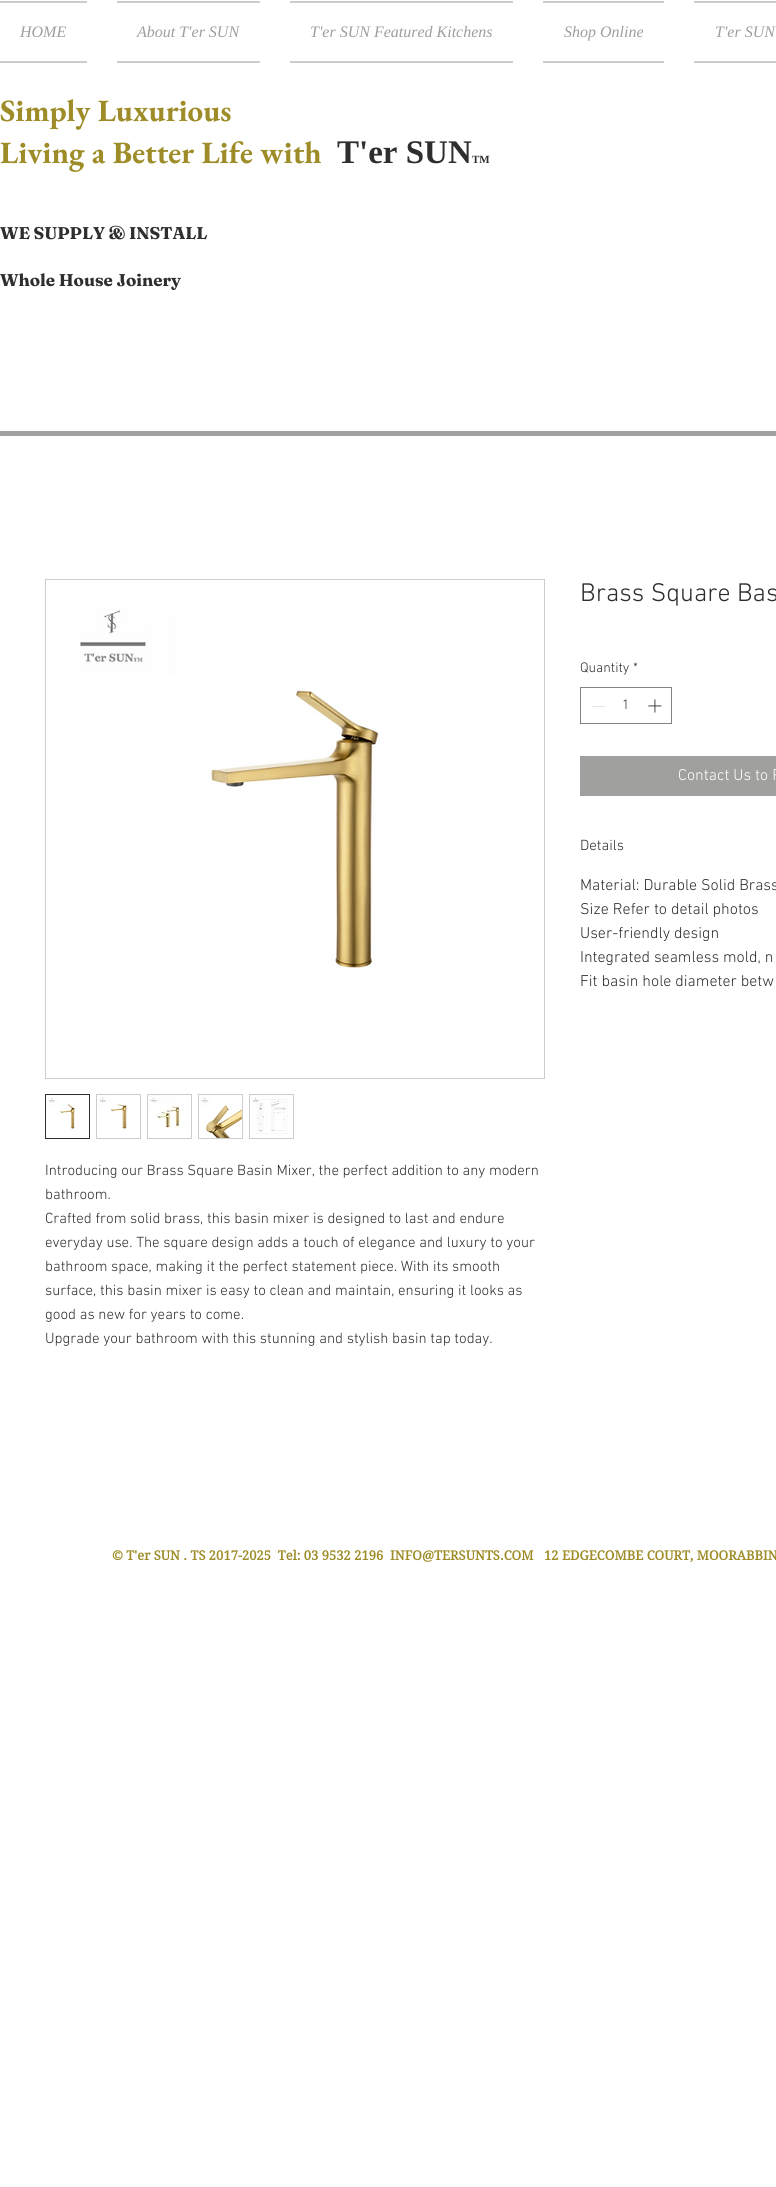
import math
import cairocffi as cairo

surface = cairo.ImageSurface(cairo.FORMAT_RGB24, 776, 2187)
cr = cairo.Context(surface)
options = cairo.FontOptions()
options.set_hint_metrics(cairo.HINT_METRICS_OFF)
options.set_hint_style(cairo.HINT_STYLE_NONE)
cr.set_font_options(options)
cr.set_miter_limit(4)


def use_color(code):
    cr.set_source_rgb(*(v / 255 for v in bytes.fromhex(code[-6:])))


def picture(path, x, y, w, h):
    cr.save()
    cr.set_source_surface(cairo.ImageSurface.create_from_png(path), x, y)
    cr.rectangle(x, y, w, h)
    cr.fill()
    cr.restore()


use_color("#ffffff")
cr.paint()
use_color("#cccccc")
cr.rectangle(0, 1, 87, 2)
cr.fill()
cr.rectangle(0, 61, 87, 2)
cr.fill()
cr.select_font_face("Liberation Serif", cairo.FONT_SLANT_ITALIC)
cr.set_font_size(16)
use_color("#9e9e9e")
cr.move_to(20, 37)
cr.show_text("HOME")
use_color("#cccccc")
cr.rectangle(117, 1, 143, 2)
cr.fill()
cr.rectangle(117, 61, 143, 2)
cr.fill()
use_color("#9e9e9e")
cr.move_to(137, 37)
cr.show_text("About T'er SUN")
use_color("#cccccc")
cr.rectangle(290, 1, 223, 2)
cr.fill()
cr.rectangle(290, 61, 223, 2)
cr.fill()
use_color("#9e9e9e")
cr.move_to(310, 37)
cr.show_text("T'er SUN Featured Kitchens")
use_color("#cccccc")
cr.rectangle(543, 1, 121, 2)
cr.fill()
cr.rectangle(543, 61, 121, 2)
cr.fill()
use_color("#9e9e9e")
cr.move_to(564, 37)
cr.show_text("Shop Online")
use_color("#cccccc")
cr.rectangle(694, 1, 82, 2)
cr.fill()
cr.rectangle(694, 61, 82, 2)
cr.fill()
use_color("#9e9e9e")
cr.move_to(715, 37)
cr.show_text("T'er SUN")
cr.select_font_face("EB Garamond", cairo.FONT_SLANT_NORMAL, cairo.FONT_WEIGHT_BOLD)
cr.set_font_size(31)
use_color("#9e8c28")
cr.move_to(0, 121)
cr.show_text("Simply Luxurious")
cr.move_to(0, 163)
cr.show_text("Living a Better Life with")
cr.select_font_face("Liberation Serif", cairo.FONT_SLANT_NORMAL, cairo.FONT_WEIGHT_BOLD)
cr.set_font_size(33)
use_color("#2f2e2e")
cr.move_to(337, 163)
cr.show_text("T'er SUN")
cr.set_font_size(11)
cr.move_to(472, 163)
cr.show_text("TM")
cr.select_font_face("Fraunces", cairo.FONT_SLANT_NORMAL, cairo.FONT_WEIGHT_BOLD)
cr.set_font_size(17)
cr.move_to(0, 239)
cr.show_text("WE SUPPLY & INSTALL")
cr.move_to(0, 286)
cr.show_text("Whole House Joinery")
use_color("#a0a09f")
cr.rectangle(0, 431, 776, 5)
cr.fill()
cr.select_font_face("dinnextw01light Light")
cr.set_font_size(26)
use_color("#2f2e2e")
cr.move_to(580, 601)
cr.show_text("Brass Square Bas")
cr.set_font_size(14)
cr.move_to(580, 672)
cr.show_text("Quantity")
cr.move_to(633, 672)
cr.show_text("*")
cr.rectangle(580.5, 687.5, 91, 36)
use_color("#828282")
cr.set_line_width(1)
cr.stroke()
use_color("#e3e3e3")
cr.rectangle(592, 706, 13, 1)
cr.fill()
use_color("#2f2e2e")
cr.move_to(622, 709)
cr.show_text("1")
picture("img1.png", 648, 699, 14, 14)
use_color("#a0a09f")
cr.rectangle(580, 756, 196, 40)
cr.fill()
cr.set_font_size(16)
use_color("#ffffff")
cr.move_to(678, 780)
cr.show_text("Contact Us to P")
cr.set_font_size(15)
use_color("#2f2e2e")
cr.move_to(580, 850)
cr.show_text("Details")
cr.set_font_size(16)
cr.move_to(580, 890)
cr.show_text("Material: Durable Solid Brass")
cr.move_to(580, 914)
cr.show_text("Size Refer to detail photos")
cr.move_to(580, 938)
cr.show_text("User-friendly design")
cr.move_to(580, 962)
cr.show_text("Integrated seamless mold, n")
cr.move_to(580, 986)
cr.show_text("Fit basin hole diameter betw")
cr.rectangle(45.5, 579.5, 499, 499)
use_color("#cccccc")
cr.stroke()
picture("img2.png", 80, 609, 299, 359)
cr.rectangle(45.5, 1094.5, 44, 44)
use_color("#2f2e2e")
cr.stroke()
picture("img3.png", 46, 1095, 43, 43)
use_color("#cccccc")
cr.rectangle(96, 1094, 45, 45)
cr.fill()
picture("img4.png", 97, 1095, 43, 43)
cr.rectangle(147, 1094, 45, 45)
cr.fill()
picture("img5.png", 148, 1095, 43, 43)
cr.rectangle(198, 1094, 45, 45)
cr.fill()
picture("img6.png", 199, 1095, 43, 43)
cr.rectangle(249, 1094, 45, 45)
cr.fill()
picture("img7.png", 250, 1095, 43, 43)
cr.set_font_size(15)
use_color("#2f2e2e")
cr.move_to(45, 1175)
cr.show_text("Introducing our Brass Square Basin Mixer, the perfect addition to any modern")
cr.move_to(45, 1199)
cr.show_text("bathroom.")
cr.move_to(45, 1223)
cr.show_text("Crafted from solid brass, this basin mixer is designed to last and endure")
cr.move_to(45, 1247)
cr.show_text("everyday use. The square design adds a touch of elegance and luxury to your")
cr.move_to(45, 1271)
cr.show_text("bathroom space, making it the perfect statement piece. With its smooth")
cr.move_to(45, 1295)
cr.show_text("surface, this basin mixer is easy to clean and maintain, ensuring it looks as")
cr.move_to(45, 1319)
cr.show_text("good as new for years to come.")
cr.move_to(45, 1343)
cr.show_text("Upgrade your bathroom with this stunning and stylish basin tap today.")
cr.select_font_face("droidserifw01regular", cairo.FONT_SLANT_NORMAL, cairo.FONT_WEIGHT_BOLD)
cr.set_font_size(13)
use_color("#9e8c28")
cr.move_to(112, 1560)
cr.show_text("© T'er SUN . TS 2017-2025  Tel: 03 9532 2196")
cr.move_to(390, 1560)
cr.show_text("INFO@TERSUNTS.COM")
cr.move_to(544, 1560)
cr.show_text("12 EDGECOMBE COURT, MOORABBIN")
surface.write_to_png("result.png")
